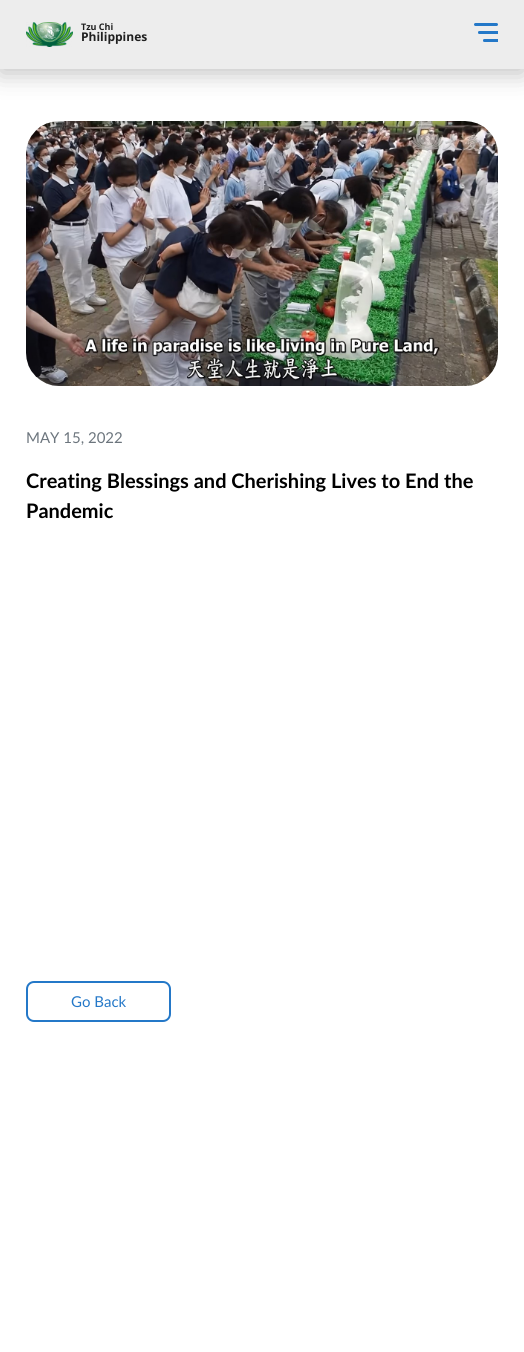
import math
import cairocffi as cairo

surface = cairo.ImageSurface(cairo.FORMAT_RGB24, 524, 1352)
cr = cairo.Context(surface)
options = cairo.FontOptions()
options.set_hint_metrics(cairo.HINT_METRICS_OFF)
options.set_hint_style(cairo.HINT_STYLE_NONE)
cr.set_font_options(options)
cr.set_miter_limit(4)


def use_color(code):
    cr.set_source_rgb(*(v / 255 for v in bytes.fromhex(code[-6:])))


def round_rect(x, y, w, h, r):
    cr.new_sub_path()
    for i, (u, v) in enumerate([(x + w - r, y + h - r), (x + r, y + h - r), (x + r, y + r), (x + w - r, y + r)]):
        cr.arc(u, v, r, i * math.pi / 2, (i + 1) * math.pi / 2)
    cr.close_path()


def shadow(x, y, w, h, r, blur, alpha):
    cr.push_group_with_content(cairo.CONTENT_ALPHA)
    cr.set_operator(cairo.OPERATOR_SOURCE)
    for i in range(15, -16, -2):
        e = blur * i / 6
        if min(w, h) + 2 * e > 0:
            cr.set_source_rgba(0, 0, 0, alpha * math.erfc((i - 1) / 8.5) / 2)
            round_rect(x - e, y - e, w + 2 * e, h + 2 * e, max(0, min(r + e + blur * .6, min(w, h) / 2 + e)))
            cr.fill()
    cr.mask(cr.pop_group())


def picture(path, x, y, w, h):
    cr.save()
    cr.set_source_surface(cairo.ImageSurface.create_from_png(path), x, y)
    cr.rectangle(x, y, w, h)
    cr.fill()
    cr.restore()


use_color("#ffffff")
cr.paint()
use_color("#000000")
shadow(0, 4, 524, 69, 0, 12.5, 0.25)
use_color("#ededed")
cr.rectangle(0, 0, 524, 69)
cr.fill()
picture("img1.png", 26, 22, 47, 25)
cr.select_font_face("Open Sans", cairo.FONT_SLANT_NORMAL, cairo.FONT_WEIGHT_BOLD)
cr.set_font_size(9)
use_color("#202020")
cr.move_to(81, 30)
cr.show_text("Tzu Chi")
cr.set_font_size(12)
cr.move_to(81, 41)
cr.show_text("Philippines")
use_color("#2478c8")
cr.new_path()
cr.move_to(484.5, 39)
cr.line_to(498, 39)
cr.line_to(498, 42)
cr.line_to(484.5, 42)
cr.curve_to(483.5, 42, 483, 41.5, 483, 40.5)
cr.curve_to(483, 39.5, 483.5, 39, 484.5, 39)
cr.close_path()
cr.fill()
cr.new_path()
cr.move_to(479.5, 31)
cr.line_to(498, 31)
cr.line_to(498, 34)
cr.line_to(479.5, 34)
cr.curve_to(478.5, 34, 478, 33.5, 478, 32.5)
cr.curve_to(478, 31.5, 478.5, 31, 479.5, 31)
cr.close_path()
cr.fill()
round_rect(474, 23, 24, 3, 1.5)
cr.fill()
picture("img2.png", 26, 121, 472, 265)
cr.select_font_face("Lato")
cr.set_font_size(15)
use_color("#6c757d")
cr.move_to(26, 443)
cr.show_text("MAY 15, 2022")
cr.select_font_face("Lato", cairo.FONT_SLANT_NORMAL, cairo.FONT_WEIGHT_BOLD)
cr.set_font_size(20)
use_color("#000000")
cr.move_to(26, 488)
cr.show_text("Creating Blessings and Cherishing Lives to End the")
cr.move_to(26, 518)
cr.show_text("Pandemic")
round_rect(27, 982, 143, 39, 7)
use_color("#2478c8")
cr.stroke()
cr.select_font_face("Lato")
cr.set_font_size(15)
cr.move_to(71, 1007)
cr.show_text("Go Back")
surface.write_to_png("result.png")
